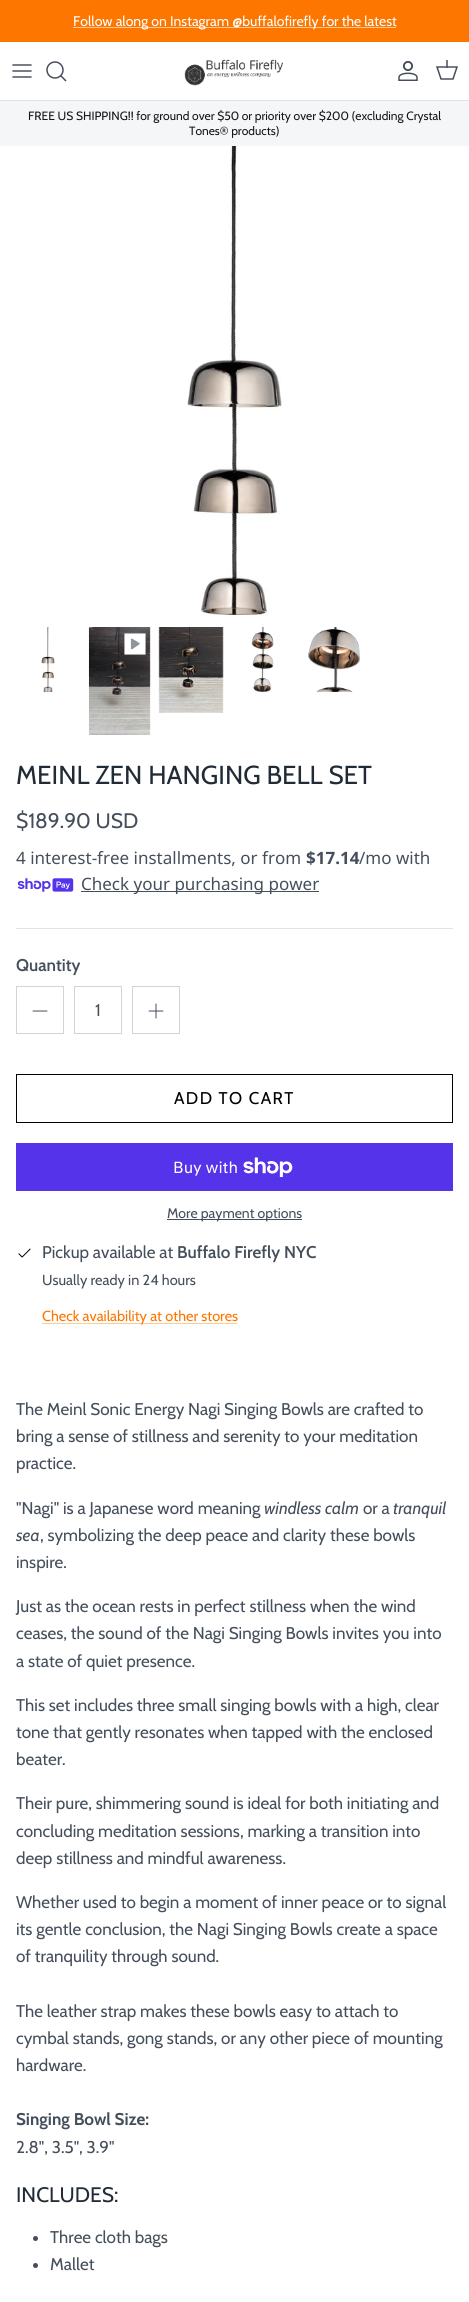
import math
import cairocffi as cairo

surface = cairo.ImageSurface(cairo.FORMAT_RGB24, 469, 2302)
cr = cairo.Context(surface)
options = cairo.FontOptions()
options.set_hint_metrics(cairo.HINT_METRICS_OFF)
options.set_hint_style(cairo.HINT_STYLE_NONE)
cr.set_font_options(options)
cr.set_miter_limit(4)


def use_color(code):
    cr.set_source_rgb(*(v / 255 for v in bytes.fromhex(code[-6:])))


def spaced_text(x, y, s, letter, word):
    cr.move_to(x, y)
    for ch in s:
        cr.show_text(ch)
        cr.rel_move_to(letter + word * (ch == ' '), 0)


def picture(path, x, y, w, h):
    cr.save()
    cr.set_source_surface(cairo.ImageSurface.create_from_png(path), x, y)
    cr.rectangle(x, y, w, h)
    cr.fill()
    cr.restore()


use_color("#ffffff")
cr.paint()
use_color("#fd7600")
cr.rectangle(0, 0, 469, 42)
cr.fill()
use_color("#fec899")
cr.rectangle(73, 27, 323, 1)
cr.fill()
cr.select_font_face("Cabin")
cr.set_font_size(14)
use_color("#ffffff")
cr.move_to(73, 26)
cr.show_text("Follow along on Instagram @buffalofirefly for the latest")
use_color("#dfe3e8")
cr.rectangle(0, 100, 469, 1)
cr.fill()
picture("img1.png", 12, 64, 20, 14)
cr.arc(55, 70, 8, 0, 2 * math.pi)
use_color("#454f5b")
cr.set_line_width(1.5)
cr.stroke()
cr.new_path()
cr.move_to(61, 76)
cr.line_to(65.5, 80.5)
cr.set_line_cap(cairo.LINE_CAP_SQUARE)
cr.stroke()
picture("img2.png", 184, 59, 99, 27)
picture("img3.png", 398, 61, 20, 20)
cr.new_path()
cr.move_to(437, 67)
cr.line_to(457, 67)
cr.line_to(453, 79)
cr.line_to(441, 79)
cr.close_path()
cr.set_line_cap(cairo.LINE_CAP_BUTT)
cr.stroke()
cr.set_source_rgba(0.271, 0.31, 0.357, 0.75)
cr.rectangle(446, 60, 2, 8)
cr.fill()
use_color("#f4f6f8")
cr.rectangle(0, 101, 469, 45)
cr.fill()
cr.set_font_size(12)
use_color("#171717")
cr.move_to(28, 120)
cr.show_text("FREE US SHIPPING!! for ground over $50 or priority over $200 (excluding Crystal")
cr.move_to(189, 135)
cr.show_text("Tones® products)")
picture("img4.png", 187, 146, 95, 469)
picture("img5.png", 41, 627, 14, 65)
picture("img6.png", 88, 627, 63, 108)
picture("img7.png", 124, 633, 22, 22)
picture("img8.png", 158, 627, 66, 86)
picture("img9.png", 251, 627, 23, 65)
picture("img10.png", 308, 627, 52, 65)
cr.set_font_size(26)
use_color("#212b36")
cr.move_to(16, 784)
cr.show_text("MEINL ZEN HANGING BELL SET")
cr.set_font_size(21)
use_color("#454f5b")
cr.move_to(16, 828)
cr.show_text("$189.90 USD")
cr.select_font_face("Noto Sans")
cr.set_font_size(17)
cr.move_to(16, 864)
cr.show_text("4 interest-free installments, or from")
cr.select_font_face("Noto Sans", cairo.FONT_SLANT_NORMAL, cairo.FONT_WEIGHT_BOLD)
cr.move_to(306, 864)
cr.show_text("$17.14")
cr.select_font_face("Noto Sans")
cr.move_to(359, 864)
cr.show_text("/mo with")
picture("img11.png", 17, 878, 57, 14)
cr.rectangle(81, 891, 238, 1)
cr.fill()
cr.move_to(81, 890)
cr.show_text("Check your purchasing power")
use_color("#e2e2e2")
cr.rectangle(16, 928, 437, 1)
cr.fill()
cr.select_font_face("Cabin SemiBold")
use_color("#454f5b")
cr.move_to(16, 971)
cr.show_text("Quantity")
cr.rectangle(16.5, 986.5, 47, 47)
use_color("#d1d3d6")
cr.set_line_width(1)
cr.stroke()
cr.new_path()
cr.move_to(33, 1011)
cr.line_to(47, 1011)
use_color("#454f5b")
cr.set_line_cap(cairo.LINE_CAP_ROUND)
cr.set_line_join(cairo.LINE_JOIN_ROUND)
cr.stroke()
cr.rectangle(74.5, 986.5, 47, 47)
use_color("#d1d3d6")
cr.set_line_cap(cairo.LINE_CAP_BUTT)
cr.set_line_join(cairo.LINE_JOIN_MITER)
cr.stroke()
cr.select_font_face("Cabin")
use_color("#454f5b")
cr.move_to(95, 1016)
cr.show_text("1")
cr.rectangle(132.5, 986.5, 47, 47)
use_color("#d1d3d6")
cr.stroke()
cr.new_path()
cr.move_to(156, 1004)
cr.line_to(156, 1018)
cr.move_to(149, 1011)
cr.line_to(163, 1011)
use_color("#454f5b")
cr.set_line_cap(cairo.LINE_CAP_ROUND)
cr.set_line_join(cairo.LINE_JOIN_ROUND)
cr.stroke()
cr.rectangle(16.5, 1074.5, 436, 48)
use_color("#000000")
cr.set_line_cap(cairo.LINE_CAP_BUTT)
cr.set_line_join(cairo.LINE_JOIN_MITER)
cr.stroke()
spaced_text(174, 1104, "ADD TO CART", 1.4, 0)
use_color("#5433eb")
cr.rectangle(16, 1143, 437, 48)
cr.fill()
cr.select_font_face("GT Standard")
cr.set_font_size(16)
use_color("#ffffff")
cr.move_to(173, 1173)
cr.show_text("Buy with")
picture("img12.png", 243, 1157, 50, 20)
use_color("#454f5b")
cr.rectangle(167, 1219, 135, 1)
cr.fill()
cr.select_font_face("Cabin")
cr.set_font_size(14)
cr.move_to(167, 1218)
cr.show_text("More payment options")
picture("img13.png", 18, 1248, 13, 10)
cr.set_font_size(17)
cr.move_to(42, 1258)
cr.show_text("Pickup available at")
cr.select_font_face("Cabin SemiBold")
cr.move_to(177, 1258)
cr.show_text("Buffalo Firefly NYC")
cr.select_font_face("Cabin")
cr.set_font_size(14.5)
cr.move_to(42, 1285)
cr.show_text("Usually ready in 24 hours")
use_color("#fec899")
cr.rectangle(42, 1323, 195, 1)
cr.fill()
use_color("#fd7600")
cr.move_to(42, 1321)
cr.show_text("Check availability at other stores")
cr.set_font_size(17)
use_color("#454f5b")
cr.move_to(16, 1415)
cr.show_text("The Meinl Sonic Energy Nagi Singing Bowls are crafted to")
cr.move_to(16, 1442)
cr.show_text("bring a sense of stillness and serenity to your meditation")
cr.move_to(16, 1469)
cr.show_text("practice.")
cr.move_to(16, 1514)
cr.show_text("\"Nagi\" is a Japanese word meaning")
cr.select_font_face("Cabin", cairo.FONT_SLANT_ITALIC)
cr.move_to(264, 1514)
cr.show_text("windless calm")
cr.select_font_face("Cabin")
cr.move_to(363, 1514)
cr.show_text("or a")
cr.select_font_face("Cabin", cairo.FONT_SLANT_ITALIC)
cr.move_to(393, 1514)
cr.show_text("tranquil")
cr.move_to(16, 1541)
cr.show_text("sea")
cr.select_font_face("Cabin")
cr.move_to(40, 1541)
cr.show_text(", symbolizing the deep peace and clarity these bowls")
cr.move_to(16, 1568)
cr.show_text("inspire.")
cr.move_to(16, 1612)
cr.show_text("Just as the ocean rests in perfect stillness when the wind")
cr.move_to(16, 1639)
cr.show_text("ceases, the sound of the Nagi Singing Bowls invites you into")
cr.move_to(16, 1667)
cr.show_text("a state of quiet presence.")
cr.move_to(16, 1711)
cr.show_text("This set includes three small singing bowls with a high, clear")
cr.move_to(16, 1738)
cr.show_text("tone that gently resonates when tapped with the enclosed")
cr.move_to(16, 1765)
cr.show_text("beater.")
cr.move_to(16, 1809)
cr.show_text("Their pure, shimmering sound is ideal for both initiating and")
cr.move_to(16, 1837)
cr.show_text("concluding meditation sessions, marking a transition into")
cr.move_to(16, 1864)
cr.show_text("deep stillness and mindful awareness.")
cr.move_to(16, 1908)
cr.show_text("Whether used to begin a moment of inner peace or to signal")
cr.move_to(16, 1935)
cr.show_text("its gentle conclusion, the Nagi Singing Bowls create a space")
cr.move_to(16, 1962)
cr.show_text("of tranquility through sound.")
cr.move_to(16, 2017)
cr.show_text("The leather strap makes these bowls easy to attach to")
cr.move_to(16, 2044)
cr.show_text("cymbal stands, gong stands, or any other piece of mounting")
cr.move_to(16, 2071)
cr.show_text("hardware.")
cr.select_font_face("Cabin", cairo.FONT_SLANT_NORMAL, cairo.FONT_WEIGHT_BOLD)
cr.move_to(16, 2125)
cr.show_text("Singing Bowl Size:")
cr.select_font_face("Cabin")
cr.move_to(16, 2153)
cr.show_text("2.8\", 3.5\", 3.9\"")
cr.set_font_size(21)
use_color("#212b36")
cr.move_to(16, 2202)
cr.show_text("INCLUDES:")
use_color("#454f5b")
cr.new_path()
cr.arc(35.5, 2238.5, 2.5, 0, 2 * math.pi)
cr.fill()
cr.set_font_size(17)
cr.move_to(50, 2243)
cr.show_text("Three cloth bags")
cr.new_path()
cr.arc(35.5, 2265.5, 2.5, 0, 2 * math.pi)
cr.fill()
cr.move_to(50, 2270)
cr.show_text("Mallet")
surface.write_to_png("result.png")
